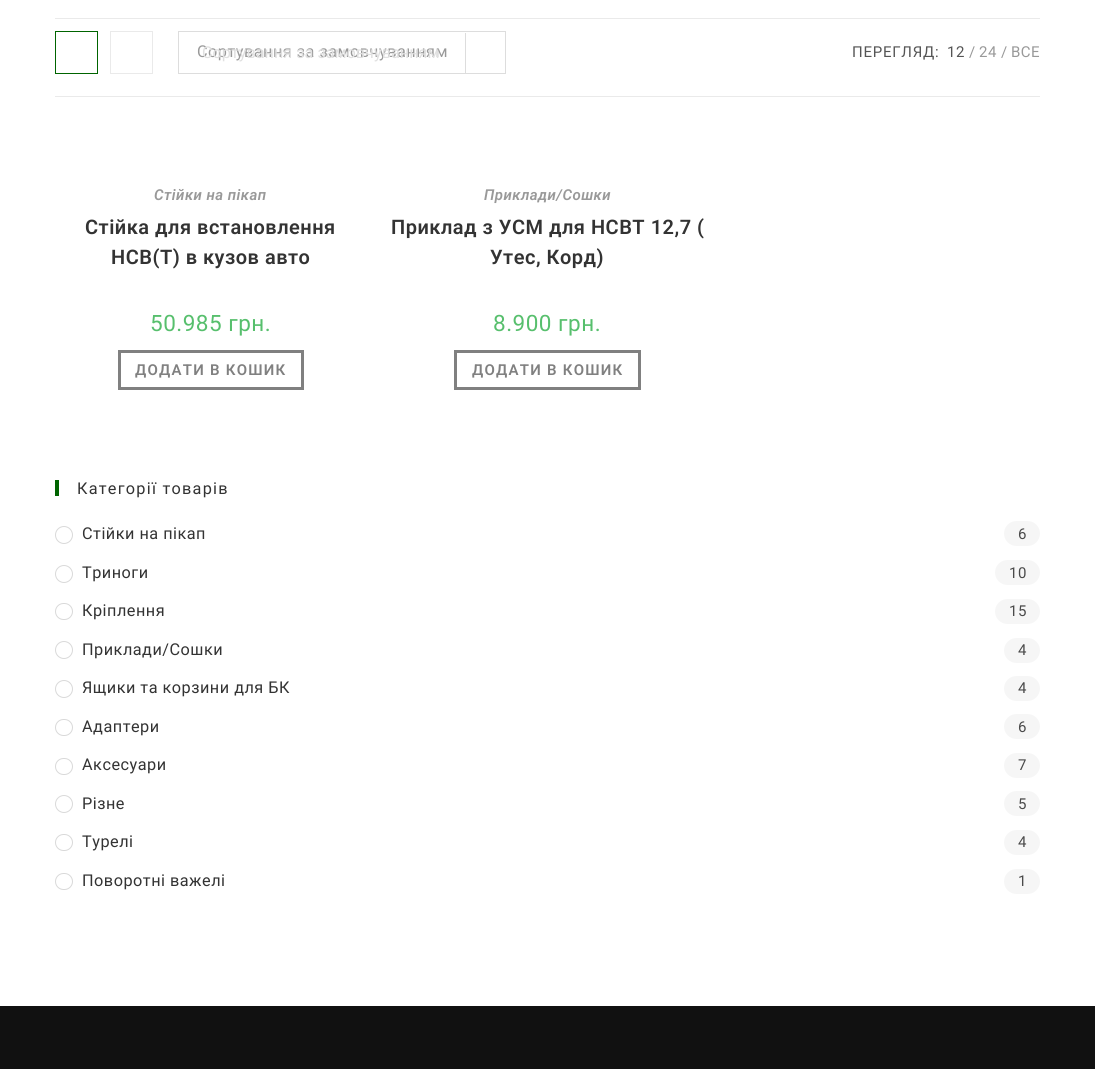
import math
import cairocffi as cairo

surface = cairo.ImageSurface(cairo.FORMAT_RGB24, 1095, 1069)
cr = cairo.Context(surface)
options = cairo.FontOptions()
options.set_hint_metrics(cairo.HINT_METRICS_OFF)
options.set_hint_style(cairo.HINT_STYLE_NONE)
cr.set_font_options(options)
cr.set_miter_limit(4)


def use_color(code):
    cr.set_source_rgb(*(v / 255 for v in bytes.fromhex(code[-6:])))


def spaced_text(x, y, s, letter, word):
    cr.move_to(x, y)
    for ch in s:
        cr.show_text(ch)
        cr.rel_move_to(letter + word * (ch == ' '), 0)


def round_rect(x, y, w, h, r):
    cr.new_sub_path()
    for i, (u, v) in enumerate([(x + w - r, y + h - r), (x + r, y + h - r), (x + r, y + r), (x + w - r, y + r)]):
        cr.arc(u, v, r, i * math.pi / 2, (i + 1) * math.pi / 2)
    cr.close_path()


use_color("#ffffff")
cr.paint()
use_color("#eaeaea")
cr.rectangle(55, 18, 985, 1)
cr.fill()
cr.rectangle(55, 96, 985, 1)
cr.fill()
cr.rectangle(55.5, 31.5, 42, 42)
use_color("#006400")
cr.set_line_width(1)
cr.stroke()
cr.rectangle(110.5, 31.5, 42, 42)
use_color("#eaeaea")
cr.stroke()
cr.rectangle(178.5, 31.5, 327, 42)
use_color("#dddddd")
cr.stroke()
cr.select_font_face("Roboto")
cr.set_font_size(16.25)
use_color("#999999")
spaced_text(197, 57, "Сортування за замовчуванням", 0.5, 0)
use_color("#dddddd")
cr.rectangle(465, 33, 1, 40)
cr.fill()
use_color("#e0e0e0")
cr.move_to(202, 58)
cr.show_text("Сортування за замовчуванням")
cr.set_font_size(15)
use_color("#555555")
spaced_text(852, 57, "ПЕРЕГЛЯД:", 0.75, 0)
spaced_text(947, 57, "12", 0.5, 0)
use_color("#999999")
spaced_text(969, 57, "/", 0.5, 0)
spaced_text(979, 57, "24", 0.5, 0)
spaced_text(1001, 57, "/", 0.5, 0)
spaced_text(1011, 57, "ВСЕ", 0.5, 0)
cr.select_font_face("Roboto SemiBold", cairo.FONT_SLANT_ITALIC)
spaced_text(154, 200, "Стійки на пікап", 0.5, 0)
cr.select_font_face("Roboto SemiBold")
cr.set_font_size(20)
use_color("#333333")
spaced_text(85, 234, "Стійка для встановлення", 0.5, 0)
spaced_text(111, 264, "НСВ(Т) в кузов авто", 0.5, 0)
cr.select_font_face("Roboto")
cr.set_font_size(22.5)
use_color("#57bf6d")
spaced_text(150, 331, "50.985 грн.", 0.5, 0)
cr.rectangle(119.5, 351.5, 183, 37)
use_color("#808080")
cr.set_line_width(3)
cr.stroke()
cr.select_font_face("Roboto SemiBold")
cr.set_font_size(15)
spaced_text(135, 375, "ДОДАТИ В КОШИК", 1.25, 0)
cr.select_font_face("Roboto SemiBold", cairo.FONT_SLANT_ITALIC)
use_color("#999999")
spaced_text(484, 200, "Приклади/Сошки", 0.5, 0)
cr.select_font_face("Roboto SemiBold")
cr.set_font_size(20)
use_color("#333333")
spaced_text(391, 234, "Приклад з УСМ для НСВT 12,7 (", 0.5, 0)
spaced_text(490, 264, "Утес, Корд)", 0.5, 0)
cr.select_font_face("Roboto")
cr.set_font_size(22.5)
use_color("#57bf6d")
spaced_text(493, 331, "8.900 грн.", 0.5, 0)
cr.rectangle(455.5, 351.5, 184, 37)
use_color("#808080")
cr.stroke()
cr.select_font_face("Roboto SemiBold")
cr.set_font_size(15)
spaced_text(472, 375, "ДОДАТИ В КОШИК", 1.25, 0)
use_color("#006400")
cr.rectangle(55, 480, 4, 16)
cr.fill()
cr.select_font_face("Roboto")
cr.set_font_size(16.25)
use_color("#333333")
spaced_text(77, 494, "Категорії товарів", 1.25, 0)
cr.new_path()
cr.arc(64, 535, 8.5, 0, 2 * math.pi)
use_color("#d9d9d9")
cr.set_line_width(1)
cr.stroke()
use_color("#333333")
spaced_text(82, 539, "Стійки на пікап", 0.5, 0)
use_color("#f6f6f6")
round_rect(1004, 521, 36, 25, 12.5)
cr.fill()
cr.set_font_size(15)
use_color("#4a4a4a")
spaced_text(1018, 539, "6", 0.5, 0)
cr.new_path()
cr.arc(64, 574, 8.5, 0, 2 * math.pi)
use_color("#d9d9d9")
cr.stroke()
cr.set_font_size(16.25)
use_color("#333333")
spaced_text(82, 578, "Триноги", 0.5, 0)
use_color("#f6f6f6")
round_rect(995, 560, 45, 25, 12.5)
cr.fill()
cr.set_font_size(15)
use_color("#4a4a4a")
spaced_text(1009, 578, "10", 0.5, 0)
round_rect(55.5, 603.5, 17, 16, 8)
use_color("#d9d9d9")
cr.stroke()
cr.set_font_size(16.25)
use_color("#333333")
spaced_text(82, 616, "Кріплення", 0.5, 0)
use_color("#f6f6f6")
round_rect(995, 599, 45, 25, 12.5)
cr.fill()
cr.set_font_size(15)
use_color("#4a4a4a")
spaced_text(1009, 616, "15", 0.5, 0)
cr.new_path()
cr.arc(64, 650, 8.5, 0, 2 * math.pi)
use_color("#d9d9d9")
cr.stroke()
cr.set_font_size(16.25)
use_color("#333333")
spaced_text(82, 655, "Приклади/Сошки", 0.5, 0)
use_color("#f6f6f6")
round_rect(1004, 638, 36, 25, 12.5)
cr.fill()
cr.set_font_size(15)
use_color("#4a4a4a")
spaced_text(1018, 655, "4", 0.5, 0)
cr.new_path()
cr.arc(64, 689, 8.5, 0, 2 * math.pi)
use_color("#d9d9d9")
cr.stroke()
cr.set_font_size(16.25)
use_color("#333333")
spaced_text(82, 693, "Ящики та корзини для БК", 0.5, 0)
use_color("#f6f6f6")
round_rect(1004, 676, 36, 25, 12.5)
cr.fill()
cr.set_font_size(15)
use_color("#4a4a4a")
spaced_text(1018, 693, "4", 0.5, 0)
round_rect(55.5, 719.5, 17, 16, 8)
use_color("#d9d9d9")
cr.stroke()
cr.set_font_size(16.25)
use_color("#333333")
spaced_text(82, 732, "Адаптери", 0.5, 0)
use_color("#f6f6f6")
round_rect(1004, 714, 36, 25, 12.5)
cr.fill()
cr.set_font_size(15)
use_color("#4a4a4a")
spaced_text(1018, 732, "6", 0.5, 0)
round_rect(55.5, 758.5, 17, 16, 8)
use_color("#d9d9d9")
cr.stroke()
cr.set_font_size(16.25)
use_color("#333333")
spaced_text(82, 770, "Аксесуари", 0.5, 0)
use_color("#f6f6f6")
round_rect(1004, 753, 36, 25, 12.5)
cr.fill()
cr.set_font_size(15)
use_color("#4a4a4a")
spaced_text(1018, 770, "7", 0.5, 0)
cr.new_path()
cr.arc(64, 804, 8.5, 0, 2 * math.pi)
use_color("#d9d9d9")
cr.stroke()
cr.set_font_size(16.25)
use_color("#333333")
spaced_text(82, 809, "Різне", 0.5, 0)
use_color("#f6f6f6")
round_rect(1004, 791, 36, 25, 12.5)
cr.fill()
cr.set_font_size(15)
use_color("#4a4a4a")
spaced_text(1018, 809, "5", 0.5, 0)
round_rect(55.5, 834.5, 17, 16, 8)
use_color("#d9d9d9")
cr.stroke()
cr.set_font_size(16.25)
use_color("#333333")
spaced_text(82, 847, "Турелі", 0.5, 0)
use_color("#f6f6f6")
round_rect(1004, 830, 36, 25, 12.5)
cr.fill()
cr.set_font_size(15)
use_color("#4a4a4a")
spaced_text(1018, 847, "4", 0.5, 0)
round_rect(55.5, 873.5, 17, 16, 8)
use_color("#d9d9d9")
cr.stroke()
cr.set_font_size(16.25)
use_color("#333333")
spaced_text(82, 886, "Поворотні важелі", 0.5, 0)
use_color("#f6f6f6")
round_rect(1004, 869, 36, 25, 12.5)
cr.fill()
cr.set_font_size(15)
use_color("#4a4a4a")
spaced_text(1018, 886, "1", 0.5, 0)
use_color("#111111")
cr.rectangle(0, 1006, 1095, 63)
cr.fill()
surface.write_to_png("result.png")
